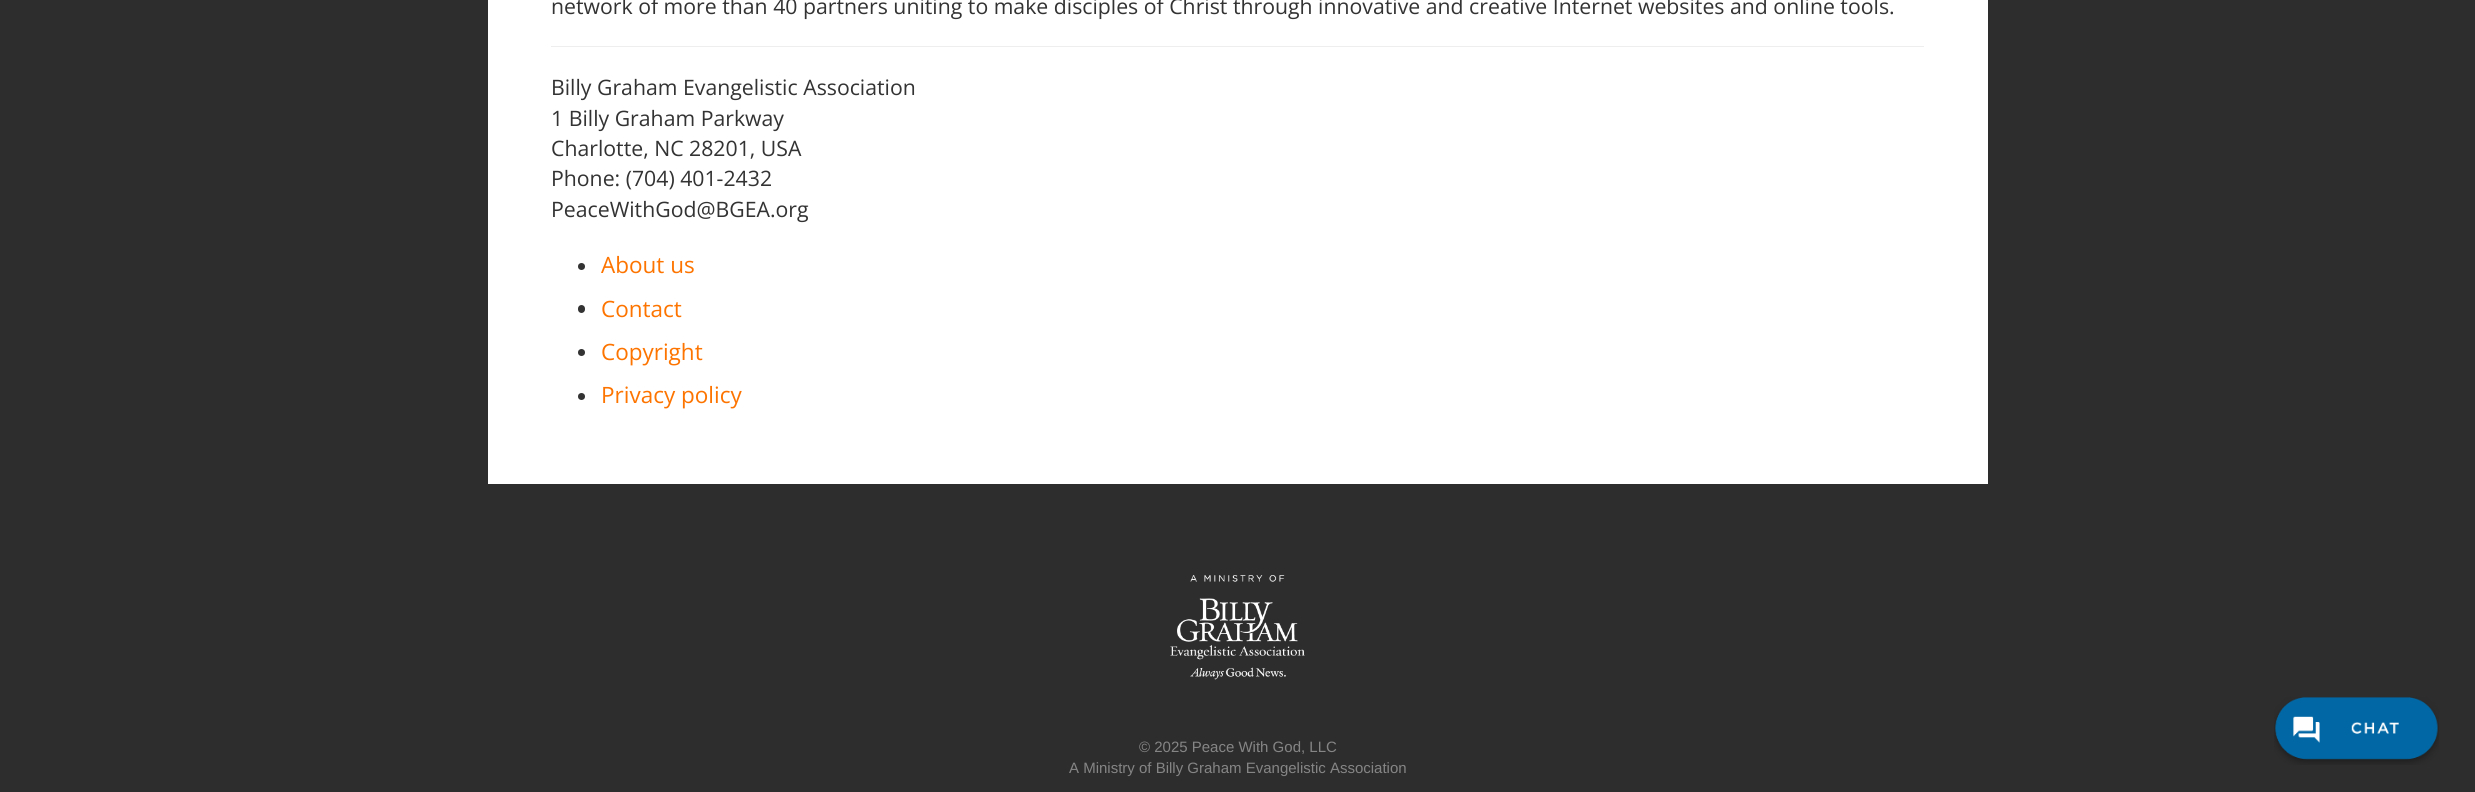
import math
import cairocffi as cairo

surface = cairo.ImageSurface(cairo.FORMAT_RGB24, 2475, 792)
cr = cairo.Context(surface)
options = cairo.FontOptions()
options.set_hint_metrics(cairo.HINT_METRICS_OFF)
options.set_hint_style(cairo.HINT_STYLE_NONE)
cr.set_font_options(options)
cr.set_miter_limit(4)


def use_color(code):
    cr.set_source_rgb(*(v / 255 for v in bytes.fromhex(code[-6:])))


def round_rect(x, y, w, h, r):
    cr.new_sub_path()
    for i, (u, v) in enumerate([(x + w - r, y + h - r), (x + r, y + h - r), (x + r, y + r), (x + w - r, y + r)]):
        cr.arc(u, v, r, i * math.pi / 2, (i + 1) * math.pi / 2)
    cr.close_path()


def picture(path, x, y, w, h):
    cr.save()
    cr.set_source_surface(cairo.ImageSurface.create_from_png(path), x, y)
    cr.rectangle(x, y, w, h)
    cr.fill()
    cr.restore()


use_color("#2d2d2d")
cr.paint()
use_color("#ffffff")
cr.rectangle(488, 0, 1500, 484)
cr.fill()
cr.select_font_face("Open Sans")
cr.set_font_size(21.25)
use_color("#333333")
cr.move_to(551, 14)
cr.show_text("network of more than 40 partners uniting to make disciples of Christ through innovative and creative Internet websites and online tools.")
use_color("#eeeeee")
cr.rectangle(551, 46, 1373, 1)
cr.fill()
use_color("#333333")
cr.move_to(551, 95)
cr.show_text("Billy Graham Evangelistic Association")
cr.move_to(551, 126)
cr.show_text("1 Billy Graham Parkway")
cr.move_to(551, 156)
cr.show_text("Charlotte, NC 28201, USA")
cr.move_to(551, 186)
cr.show_text("Phone: (704) 401-2432")
cr.move_to(551, 217)
cr.show_text("PeaceWithGod@BGEA.org")
cr.new_path()
cr.arc(581.5, 266.5, 3.5, 0, 2 * math.pi)
cr.fill()
cr.set_font_size(22.5)
use_color("#fd7400")
cr.move_to(601, 273)
cr.show_text("About us")
use_color("#333333")
round_rect(578, 305, 7, 8, 3.5)
cr.fill()
use_color("#fd7400")
cr.move_to(601, 317)
cr.show_text("Contact")
use_color("#333333")
cr.new_path()
cr.arc(581.5, 352.5, 3.5, 0, 2 * math.pi)
cr.fill()
use_color("#fd7400")
cr.move_to(601, 360)
cr.show_text("Copyright")
use_color("#333333")
cr.new_path()
cr.arc(581.5, 396.5, 3.5, 0, 2 * math.pi)
cr.fill()
use_color("#fd7400")
cr.move_to(601, 403)
cr.show_text("Privacy policy")
picture("img1.png", 1170, 575, 135, 105)
cr.select_font_face("Liberation Sans")
cr.set_font_size(15)
use_color("#858585")
cr.move_to(1139, 752)
cr.show_text("© 2025 Peace With God, LLC")
cr.move_to(1069, 773)
cr.show_text("A Ministry of Billy Graham Evangelistic Association")
picture("img2.png", 2274, 697, 165, 68)
surface.write_to_png("result.png")
